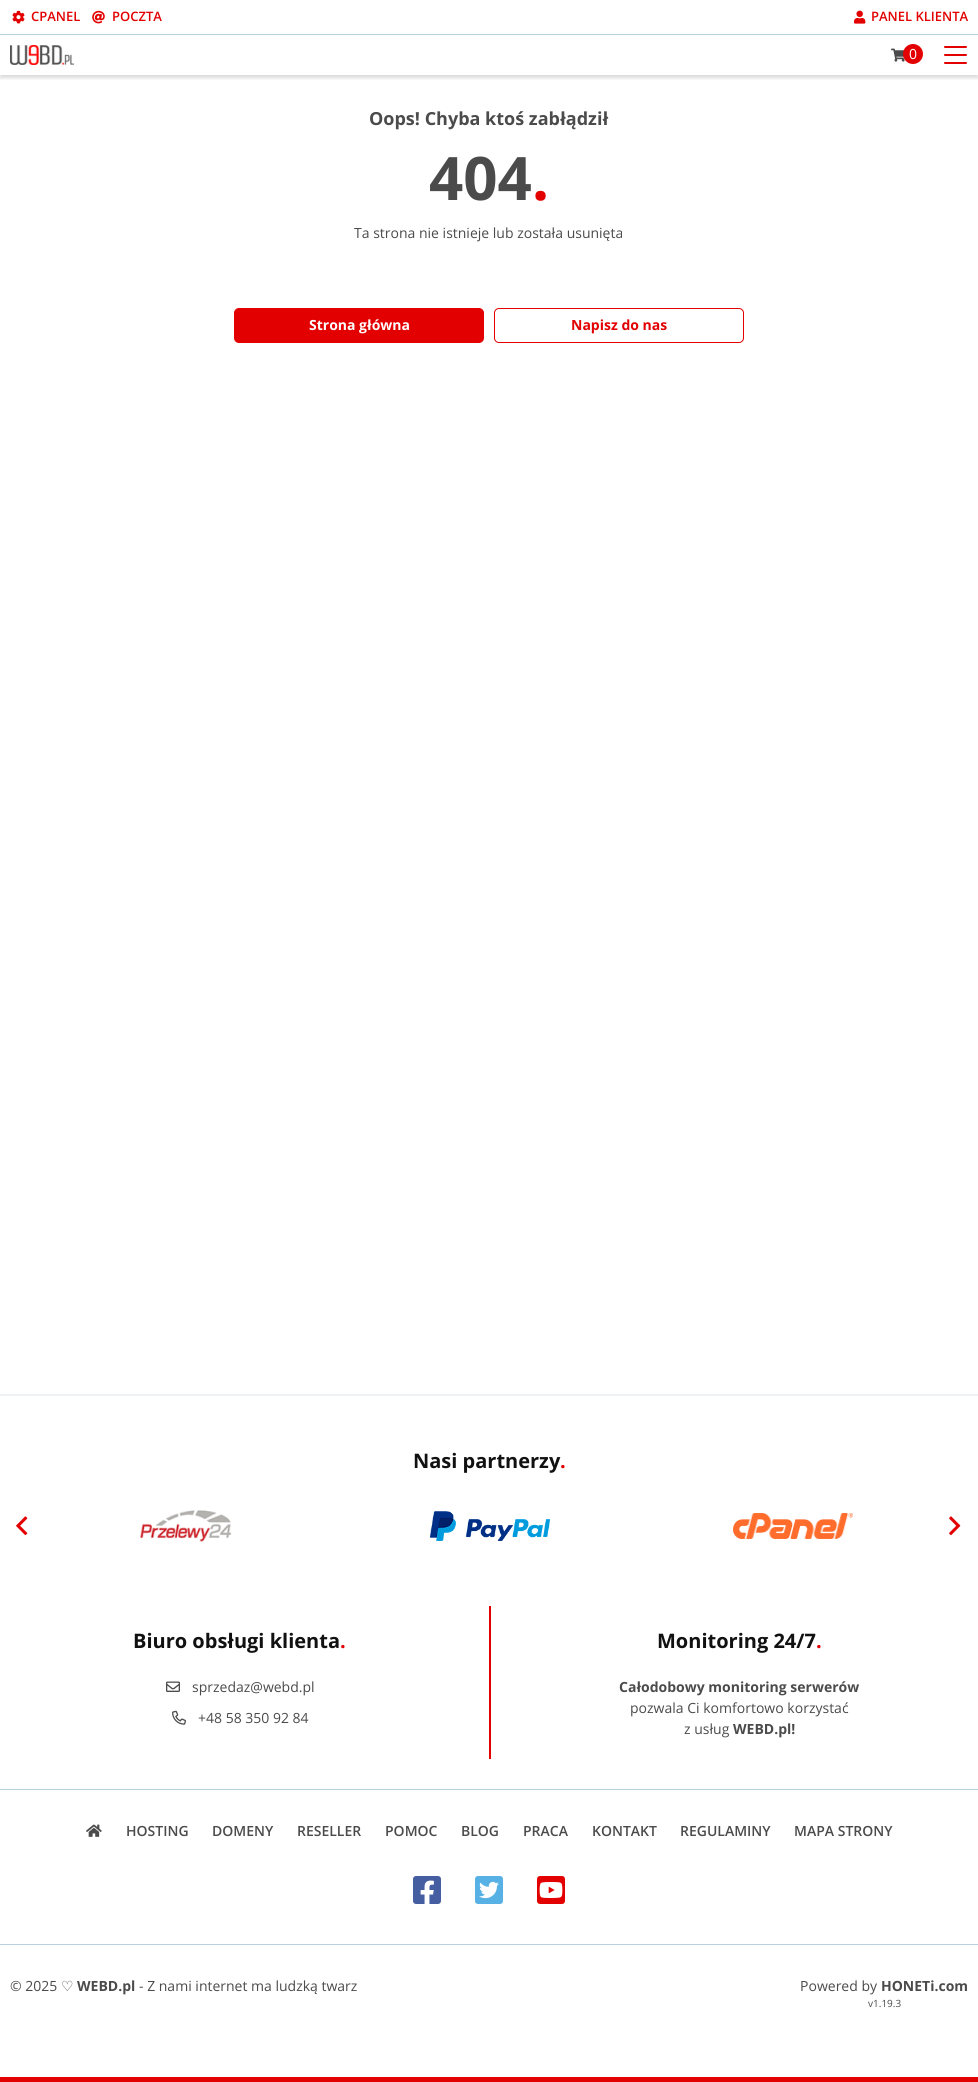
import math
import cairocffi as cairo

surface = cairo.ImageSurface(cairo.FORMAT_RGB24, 978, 2082)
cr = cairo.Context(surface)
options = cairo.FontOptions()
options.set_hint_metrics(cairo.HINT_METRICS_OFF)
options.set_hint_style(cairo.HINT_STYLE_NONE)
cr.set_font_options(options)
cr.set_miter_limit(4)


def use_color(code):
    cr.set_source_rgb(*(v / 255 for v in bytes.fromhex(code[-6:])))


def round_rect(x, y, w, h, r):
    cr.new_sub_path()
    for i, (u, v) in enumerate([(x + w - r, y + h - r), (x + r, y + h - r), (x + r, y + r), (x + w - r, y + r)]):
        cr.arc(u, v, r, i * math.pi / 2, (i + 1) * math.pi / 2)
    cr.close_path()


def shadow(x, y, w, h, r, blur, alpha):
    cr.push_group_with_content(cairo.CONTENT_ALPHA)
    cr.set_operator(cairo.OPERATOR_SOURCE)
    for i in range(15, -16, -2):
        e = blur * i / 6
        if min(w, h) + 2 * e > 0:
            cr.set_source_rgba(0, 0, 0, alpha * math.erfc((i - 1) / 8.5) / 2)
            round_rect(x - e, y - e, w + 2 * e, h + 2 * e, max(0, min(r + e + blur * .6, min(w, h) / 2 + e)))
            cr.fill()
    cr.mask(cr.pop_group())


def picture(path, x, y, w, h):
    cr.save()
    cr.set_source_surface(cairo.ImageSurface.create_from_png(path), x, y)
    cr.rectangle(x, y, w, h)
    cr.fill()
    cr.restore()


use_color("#ffffff")
cr.paint()
cr.save()
cr.rectangle(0, 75, 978, 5)
cr.clip()
use_color("#000000")
shadow(0, 3, 978, 75, 0, 2, 0.15)
cr.restore()
use_color("#b9d2df")
cr.rectangle(0, 34, 978, 1)
cr.fill()
picture("img1.png", 12, 10, 13, 14)
cr.select_font_face("Open Sans SemiBold")
cr.set_font_size(13)
use_color("#e30000")
cr.move_to(31, 21)
cr.show_text("CPANEL")
picture("img2.png", 92, 10, 13, 14)
cr.move_to(112, 21)
cr.show_text("POCZTA")
picture("img3.png", 854, 10, 12, 14)
cr.move_to(871, 21)
cr.show_text("PANEL KLIENTA")
picture("img4.png", 891, 48, 14, 14)
cr.arc(913, 54, 10, 0, 2 * math.pi)
cr.fill()
cr.select_font_face("Open Sans")
cr.set_font_size(14)
use_color("#ffffff")
cr.move_to(909, 59)
cr.show_text("0")
picture("img5.png", 10, 45, 64, 20)
use_color("#e30000")
round_rect(944, 46, 23, 2, 1)
cr.fill()
round_rect(944, 54, 23, 2, 1)
cr.fill()
round_rect(944, 62, 23, 2, 1)
cr.fill()
cr.select_font_face("Open Sans", cairo.FONT_SLANT_NORMAL, cairo.FONT_WEIGHT_BOLD)
cr.set_font_size(18)
use_color("#4b4b4b")
cr.move_to(369, 125)
cr.show_text("Oops! Chyba ktoś zabłądził")
cr.set_font_size(60)
cr.move_to(429, 200)
cr.show_text("404")
use_color("#e30000")
cr.move_to(532, 200)
cr.show_text(".")
cr.select_font_face("Open Sans")
cr.set_font_size(14)
use_color("#4b4b4b")
cr.move_to(354, 238)
cr.show_text("Ta strona nie istnieje lub została usunięta")
use_color("#e30000")
round_rect(234, 308, 250, 35, 5)
cr.fill()
cr.select_font_face("Open Sans", cairo.FONT_SLANT_NORMAL, cairo.FONT_WEIGHT_BOLD)
use_color("#ffffff")
cr.move_to(309, 330)
cr.show_text("Strona główna")
round_rect(494.5, 308.5, 249, 34, 4.5)
use_color("#e30000")
cr.set_line_width(1)
cr.stroke()
cr.move_to(571, 330)
cr.show_text("Napisz do nas")
use_color("#eef2f4")
cr.rectangle(0, 1394, 978, 2)
cr.fill()
cr.set_font_size(20)
use_color("#111111")
cr.move_to(413, 1468)
cr.show_text("Nasi partnerzy")
use_color("#e30000")
cr.move_to(560, 1468)
cr.show_text(".")
picture("img6.png", 16, 1516, 12, 20)
picture("img7.png", 140, 1510, 92, 32)
picture("img8.png", 430, 1511, 120, 30)
picture("img9.png", 733, 1513, 120, 26)
picture("img10.png", 949, 1516, 12, 20)
use_color("#111111")
cr.move_to(133, 1648)
cr.show_text("Biuro obsługi klienta")
use_color("#e30000")
cr.move_to(340, 1648)
cr.show_text(".")
picture("img11.png", 166, 1681, 14, 11)
cr.select_font_face("Open Sans")
cr.set_font_size(14)
use_color("#4b4b4b")
cr.move_to(192, 1692)
cr.show_text("sprzedaz@webd.pl")
picture("img12.png", 172, 1710, 14, 15)
cr.move_to(198, 1723)
cr.show_text("+48 58 350 92 84")
use_color("#e30000")
cr.rectangle(489, 1606, 2, 153)
cr.fill()
cr.select_font_face("Open Sans", cairo.FONT_SLANT_NORMAL, cairo.FONT_WEIGHT_BOLD)
cr.set_font_size(20)
use_color("#111111")
cr.move_to(657, 1648)
cr.show_text("Monitoring 24/7")
use_color("#e30000")
cr.move_to(816, 1648)
cr.show_text(".")
cr.set_font_size(14)
use_color("#4b4b4b")
cr.move_to(619, 1692)
cr.show_text("Całodobowy monitoring serwerów")
cr.select_font_face("Open Sans")
cr.move_to(630, 1713)
cr.show_text("pozwala Ci komfortowo korzystać")
cr.move_to(684, 1734)
cr.show_text("z usług")
cr.select_font_face("Open Sans", cairo.FONT_SLANT_NORMAL, cairo.FONT_WEIGHT_BOLD)
cr.move_to(733, 1734)
cr.show_text("WEBD.pl!")
use_color("#b9d2df")
cr.rectangle(0, 1789, 978, 1)
cr.fill()
picture("img13.png", 86, 1824, 16, 13)
cr.select_font_face("Open Sans SemiBold")
use_color("#4b4b4b")
cr.move_to(126, 1836)
cr.show_text("HOSTING")
cr.move_to(212, 1836)
cr.show_text("DOMENY")
cr.move_to(297, 1836)
cr.show_text("RESELLER")
cr.move_to(385, 1836)
cr.show_text("POMOC")
cr.move_to(461, 1836)
cr.show_text("BLOG")
cr.move_to(523, 1836)
cr.show_text("PRACA")
cr.move_to(592, 1836)
cr.show_text("KONTAKT")
cr.move_to(680, 1836)
cr.show_text("REGULAMINY")
cr.move_to(794, 1836)
cr.show_text("MAPA STRONY")
picture("img14.png", 413, 1876, 28, 28)
picture("img15.png", 475, 1876, 28, 28)
picture("img16.png", 537, 1876, 28, 28)
use_color("#b9d2df")
cr.rectangle(0, 1944, 978, 1)
cr.fill()
use_color("#e30000")
cr.rectangle(0, 2077, 978, 5)
cr.fill()
cr.select_font_face("Open Sans")
use_color("#4b4b4b")
cr.move_to(10, 1991)
cr.show_text("© 2025")
cr.select_font_face("DejaVu Sans")
cr.move_to(61, 1991)
cr.show_text("♡")
cr.select_font_face("Open Sans", cairo.FONT_SLANT_NORMAL, cairo.FONT_WEIGHT_BOLD)
cr.move_to(77, 1991)
cr.show_text("WEBD.pl")
cr.select_font_face("Open Sans")
cr.move_to(139, 1991)
cr.show_text("- Z nami internet ma ludzką twarz")
cr.move_to(800, 1991)
cr.show_text("Powered by")
cr.select_font_face("Open Sans", cairo.FONT_SLANT_NORMAL, cairo.FONT_WEIGHT_BOLD)
cr.move_to(881, 1991)
cr.show_text("HONETi.com")
cr.select_font_face("Open Sans")
cr.set_font_size(10)
cr.move_to(868, 2007)
cr.show_text("v1.19.3")
surface.write_to_png("result.png")
